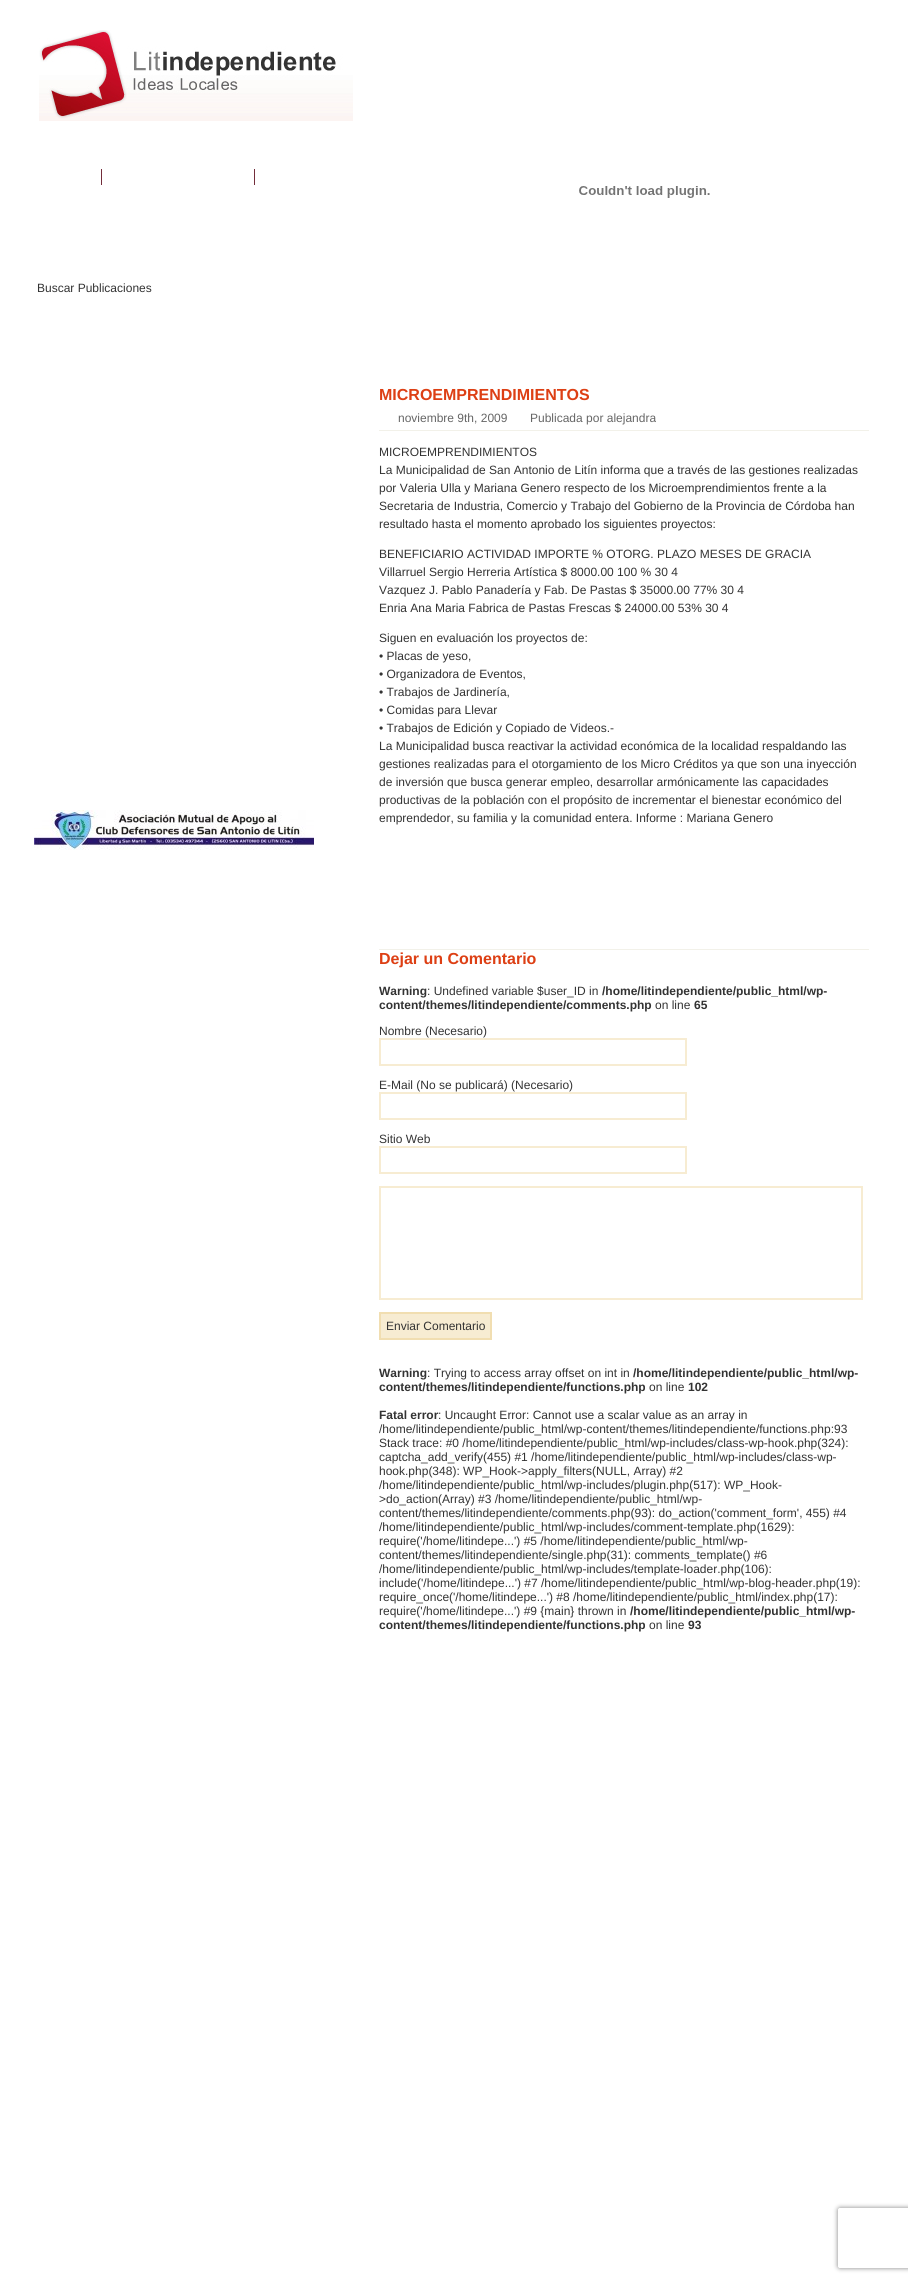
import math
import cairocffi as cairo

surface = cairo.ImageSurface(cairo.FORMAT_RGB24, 908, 2282)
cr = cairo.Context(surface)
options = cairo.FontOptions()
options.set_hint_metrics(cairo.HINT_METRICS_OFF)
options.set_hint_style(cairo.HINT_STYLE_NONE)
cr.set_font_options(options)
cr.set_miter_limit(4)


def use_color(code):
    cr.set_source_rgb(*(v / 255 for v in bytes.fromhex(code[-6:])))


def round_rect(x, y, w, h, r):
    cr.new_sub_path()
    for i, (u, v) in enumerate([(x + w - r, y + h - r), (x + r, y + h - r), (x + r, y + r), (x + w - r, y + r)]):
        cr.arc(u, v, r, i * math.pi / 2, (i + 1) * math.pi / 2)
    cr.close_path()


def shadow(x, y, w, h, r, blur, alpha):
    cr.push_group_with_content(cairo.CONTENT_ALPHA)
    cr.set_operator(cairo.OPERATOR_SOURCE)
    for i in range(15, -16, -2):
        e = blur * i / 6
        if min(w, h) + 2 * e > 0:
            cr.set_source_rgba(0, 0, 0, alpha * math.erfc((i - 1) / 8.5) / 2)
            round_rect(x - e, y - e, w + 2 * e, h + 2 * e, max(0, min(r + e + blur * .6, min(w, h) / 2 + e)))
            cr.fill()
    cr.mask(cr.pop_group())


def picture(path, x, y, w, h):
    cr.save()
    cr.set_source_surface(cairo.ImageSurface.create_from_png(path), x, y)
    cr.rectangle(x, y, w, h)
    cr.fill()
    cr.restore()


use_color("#ffffff")
cr.paint()
picture("img1.png", 39, 30, 314, 91)
use_color("#732d3a")
cr.rectangle(101, 169, 1, 16)
cr.fill()
cr.rectangle(254, 169, 1, 16)
cr.fill()
picture("img2.png", 579, 186, 131, 12)
cr.select_font_face("Liberation Sans")
cr.set_font_size(12)
use_color("#333333")
cr.move_to(37, 292)
cr.show_text("Buscar Publicaciones")
picture("img3.png", 34, 810, 280, 40)
use_color("#f2f1e9")
cr.rectangle(379, 430, 490, 1)
cr.fill()
cr.select_font_face("Liberation Sans", cairo.FONT_SLANT_NORMAL, cairo.FONT_WEIGHT_BOLD)
cr.set_font_size(16)
use_color("#dd3f14")
cr.move_to(379, 400)
cr.show_text("MICROEMPRENDIMIENTOS")
cr.select_font_face("Liberation Sans")
cr.set_font_size(12)
use_color("#666666")
cr.move_to(398, 422)
cr.show_text("noviembre 9th, 2009")
cr.move_to(530, 422)
cr.show_text("Publicada por alejandra")
use_color("#333333")
cr.move_to(379, 456)
cr.show_text("MICROEMPRENDIMIENTOS")
cr.move_to(379, 474)
cr.show_text("La Municipalidad de San Antonio de Litín informa que a través de las gestiones realizadas")
cr.move_to(379, 492)
cr.show_text("por Valeria Ulla y Mariana Genero respecto de los Microemprendimientos frente a la")
cr.move_to(379, 510)
cr.show_text("Secretaria de Industria, Comercio y Trabajo del Gobierno de la Provincia de Córdoba han")
cr.move_to(379, 528)
cr.show_text("resultado hasta el momento aprobado los siguientes proyectos:")
cr.move_to(379, 558)
cr.show_text("BENEFICIARIO ACTIVIDAD IMPORTE % OTORG. PLAZO MESES DE GRACIA")
cr.move_to(379, 576)
cr.show_text("Villarruel Sergio Herreria Artística $ 8000.00 100 % 30 4")
cr.move_to(379, 594)
cr.show_text("Vazquez J. Pablo Panadería y Fab. De Pastas $ 35000.00 77% 30 4")
cr.move_to(379, 612)
cr.show_text("Enria Ana Maria Fabrica de Pastas Frescas $ 24000.00 53% 30 4")
cr.move_to(379, 642)
cr.show_text("Siguen en evaluación los proyectos de:")
cr.move_to(379, 660)
cr.show_text("• Placas de yeso,")
cr.move_to(379, 678)
cr.show_text("• Organizadora de Eventos,")
cr.move_to(379, 696)
cr.show_text("• Trabajos de Jardinería,")
cr.move_to(379, 714)
cr.show_text("• Comidas para Llevar")
cr.move_to(379, 732)
cr.show_text("• Trabajos de Edición y Copiado de Videos.-")
cr.move_to(379, 750)
cr.show_text("La Municipalidad busca reactivar la actividad económica de la localidad respaldando las")
cr.move_to(379, 768)
cr.show_text("gestiones realizadas para el otorgamiento de los Micro Créditos ya que son una inyección")
cr.move_to(379, 786)
cr.show_text("de inversión que busca generar empleo, desarrollar armónicamente las capacidades")
cr.move_to(379, 804)
cr.show_text("productivas de la población con el propósito de incrementar el bienestar económico del")
cr.move_to(379, 822)
cr.show_text("emprendedor, su familia y la comunidad entera. Informe : Mariana Genero")
use_color("#f2f1e9")
cr.rectangle(379, 949, 490, 1)
cr.fill()
cr.select_font_face("Liberation Sans", cairo.FONT_SLANT_NORMAL, cairo.FONT_WEIGHT_BOLD)
cr.set_font_size(16)
use_color("#dd3f14")
cr.move_to(379, 964)
cr.show_text("Dejar un Comentario")
cr.set_font_size(12)
use_color("#333333")
cr.move_to(379, 995)
cr.show_text("Warning")
cr.select_font_face("Liberation Sans")
cr.move_to(427, 995)
cr.show_text(": Undefined variable $user_ID in")
cr.select_font_face("Liberation Sans", cairo.FONT_SLANT_NORMAL, cairo.FONT_WEIGHT_BOLD)
cr.move_to(602, 995)
cr.show_text("/home/litindependiente/public_html/wp-")
cr.move_to(379, 1009)
cr.show_text("content/themes/litindependiente/comments.php")
cr.select_font_face("Liberation Sans")
cr.move_to(655, 1009)
cr.show_text("on line")
cr.select_font_face("Liberation Sans", cairo.FONT_SLANT_NORMAL, cairo.FONT_WEIGHT_BOLD)
cr.move_to(694, 1009)
cr.show_text("65")
cr.select_font_face("Liberation Sans")
cr.move_to(379, 1035)
cr.show_text("Nombre (Necesario)")
cr.rectangle(380, 1039, 306, 26)
use_color("#f7ecd2")
cr.stroke()
use_color("#333333")
cr.move_to(379, 1089)
cr.show_text("E-Mail (No se publicará) (Necesario)")
cr.rectangle(380, 1093, 306, 26)
use_color("#f7ecd2")
cr.stroke()
use_color("#333333")
cr.move_to(379, 1143)
cr.show_text("Sitio Web")
cr.rectangle(380, 1147, 306, 26)
use_color("#f7ecd2")
cr.stroke()
cr.rectangle(380, 1187, 482, 112)
cr.stroke()
cr.rectangle(380, 1313, 111, 26)
cr.fill_preserve()
use_color("#f1deb1")
cr.stroke()
use_color("#333333")
cr.move_to(386, 1330)
cr.show_text("Enviar Comentario")
cr.save()
cr.set_fill_rule(cairo.FILL_RULE_EVEN_ODD)
cr.new_path()
cr.move_to(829, 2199)
cr.line_to(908, 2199)
cr.line_to(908, 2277)
cr.line_to(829, 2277)
cr.close_path()
cr.move_to(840, 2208)
cr.line_to(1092, 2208)
cr.curve_to(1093, 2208, 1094, 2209, 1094, 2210)
cr.line_to(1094, 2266)
cr.curve_to(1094, 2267, 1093, 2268, 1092, 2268)
cr.line_to(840, 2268)
cr.curve_to(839, 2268, 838, 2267, 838, 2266)
cr.line_to(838, 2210)
cr.curve_to(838, 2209, 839, 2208, 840, 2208)
cr.close_path()
cr.clip()
use_color("#808080")
shadow(838, 2208, 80, 60, 2, 2.5, 1)
cr.restore()
cr.select_font_face("Liberation Sans", cairo.FONT_SLANT_NORMAL, cairo.FONT_WEIGHT_BOLD)
cr.move_to(379, 1377)
cr.show_text("Warning")
cr.select_font_face("Liberation Sans")
cr.move_to(427, 1377)
cr.show_text(": Trying to access array offset on int in")
cr.select_font_face("Liberation Sans", cairo.FONT_SLANT_NORMAL, cairo.FONT_WEIGHT_BOLD)
cr.move_to(633, 1377)
cr.show_text("/home/litindependiente/public_html/wp-")
cr.move_to(379, 1391)
cr.show_text("content/themes/litindependiente/functions.php")
cr.select_font_face("Liberation Sans")
cr.move_to(649, 1391)
cr.show_text("on line")
cr.select_font_face("Liberation Sans", cairo.FONT_SLANT_NORMAL, cairo.FONT_WEIGHT_BOLD)
cr.move_to(688, 1391)
cr.show_text("102")
cr.move_to(379, 1419)
cr.show_text("Fatal error")
cr.select_font_face("Liberation Sans")
cr.move_to(438, 1419)
cr.show_text(": Uncaught Error: Cannot use a scalar value as an array in")
cr.move_to(379, 1433)
cr.show_text("/home/litindependiente/public_html/wp-content/themes/litindependiente/functions.php:93")
cr.move_to(379, 1447)
cr.show_text("Stack trace: #0 /home/litindependiente/public_html/wp-includes/class-wp-hook.php(324):")
cr.move_to(379, 1461)
cr.show_text("captcha_add_verify(455) #1 /home/litindependiente/public_html/wp-includes/class-wp-")
cr.move_to(379, 1475)
cr.show_text("hook.php(348): WP_Hook->apply_filters(NULL, Array) #2")
cr.move_to(379, 1489)
cr.show_text("/home/litindependiente/public_html/wp-includes/plugin.php(517): WP_Hook-")
cr.move_to(379, 1503)
cr.show_text(">do_action(Array) #3 /home/litindependiente/public_html/wp-")
cr.move_to(379, 1517)
cr.show_text("content/themes/litindependiente/comments.php(93): do_action('comment_form', 455) #4")
cr.move_to(379, 1531)
cr.show_text("/home/litindependiente/public_html/wp-includes/comment-template.php(1629):")
cr.move_to(379, 1545)
cr.show_text("require('/home/litindepe...') #5 /home/litindependiente/public_html/wp-")
cr.move_to(379, 1559)
cr.show_text("content/themes/litindependiente/single.php(31): comments_template() #6")
cr.move_to(379, 1573)
cr.show_text("/home/litindependiente/public_html/wp-includes/template-loader.php(106):")
cr.move_to(379, 1587)
cr.show_text("include('/home/litindepe...') #7 /home/litindependiente/public_html/wp-blog-header.php(19):")
cr.move_to(379, 1601)
cr.show_text("require_once('/home/litindepe...') #8 /home/litindependiente/public_html/index.php(17):")
cr.move_to(379, 1615)
cr.show_text("require('/home/litindepe...') #9 {main} thrown in")
cr.select_font_face("Liberation Sans", cairo.FONT_SLANT_NORMAL, cairo.FONT_WEIGHT_BOLD)
cr.move_to(630, 1615)
cr.show_text("/home/litindependiente/public_html/wp-")
cr.move_to(379, 1629)
cr.show_text("content/themes/litindependiente/functions.php")
cr.select_font_face("Liberation Sans")
cr.move_to(649, 1629)
cr.show_text("on line")
cr.select_font_face("Liberation Sans", cairo.FONT_SLANT_NORMAL, cairo.FONT_WEIGHT_BOLD)
cr.move_to(688, 1629)
cr.show_text("93")
surface.write_to_png("result.png")
